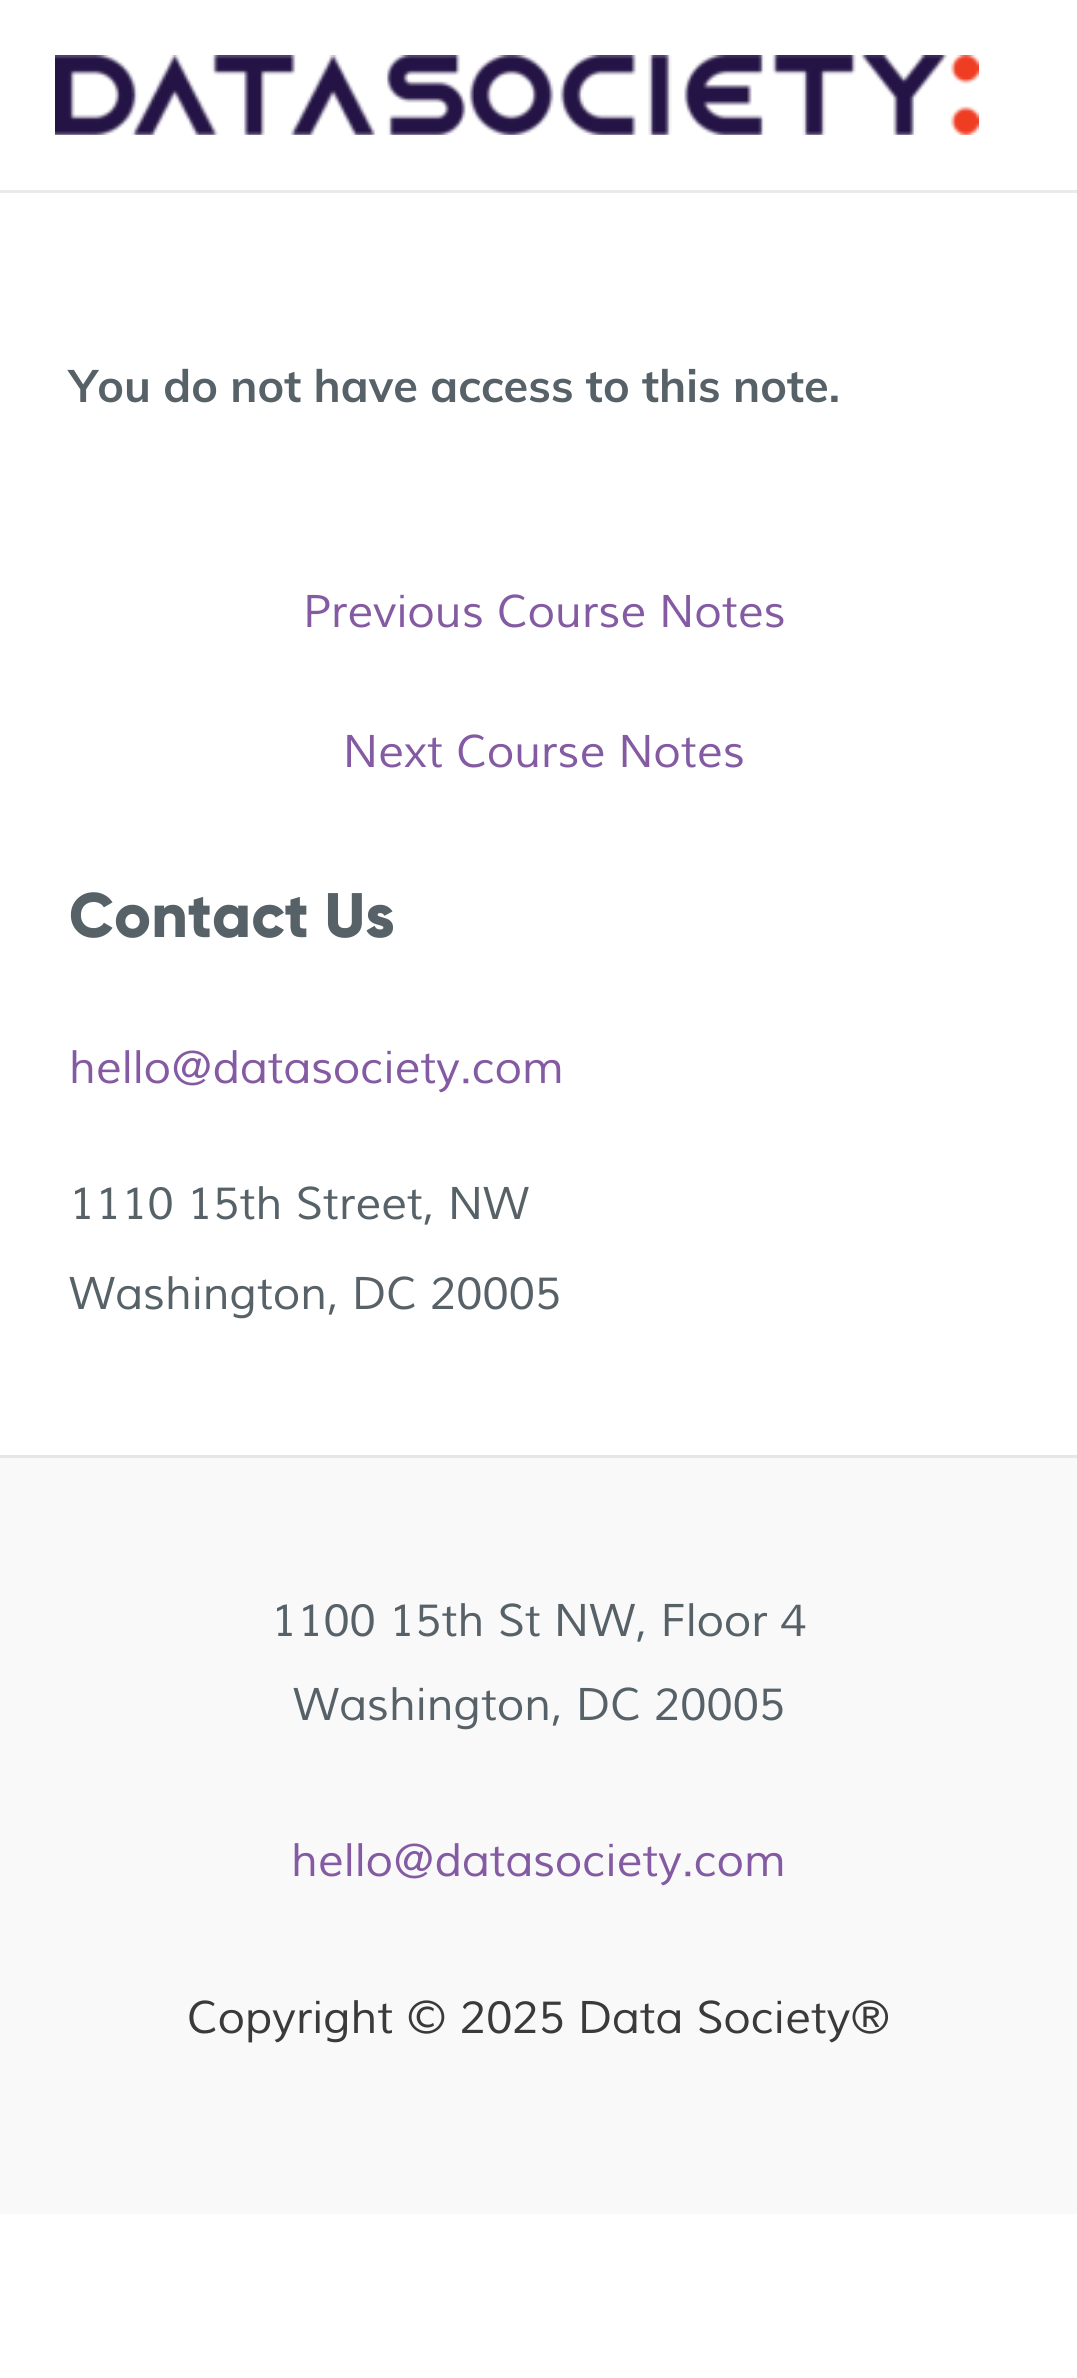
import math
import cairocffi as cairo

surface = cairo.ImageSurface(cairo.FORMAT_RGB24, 1077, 2378)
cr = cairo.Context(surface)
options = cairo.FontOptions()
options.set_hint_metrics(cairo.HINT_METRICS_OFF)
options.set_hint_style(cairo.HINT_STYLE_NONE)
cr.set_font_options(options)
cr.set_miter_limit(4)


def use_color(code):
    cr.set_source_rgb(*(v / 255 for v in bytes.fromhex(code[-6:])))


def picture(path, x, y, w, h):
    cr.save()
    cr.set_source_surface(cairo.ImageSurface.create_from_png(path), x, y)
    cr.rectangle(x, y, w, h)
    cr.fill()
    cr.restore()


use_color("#ffffff")
cr.paint()
use_color("#eaeaea")
cr.rectangle(0, 190, 1077, 3)
cr.fill()
picture("img1.png", 55, 55, 924, 80)
cr.select_font_face("Muli", cairo.FONT_SLANT_NORMAL, cairo.FONT_WEIGHT_BOLD)
cr.set_font_size(45.1)
use_color("#576168")
cr.move_to(69, 402)
cr.show_text("You do not have access to this note.")
cr.select_font_face("Muli", cairo.FONT_SLANT_ITALIC)
use_color("#845ba3")
cr.move_to(303, 627)
cr.show_text("Previous Course Notes")
cr.move_to(343, 767)
cr.show_text("Next Course Notes")
cr.select_font_face("Gilroy ExtraBold")
cr.set_font_size(62.75)
use_color("#576168")
cr.move_to(69, 937)
cr.show_text("Contact Us")
cr.select_font_face("Muli", cairo.FONT_SLANT_ITALIC)
cr.set_font_size(45.1)
use_color("#845ba3")
cr.move_to(69, 1083)
cr.show_text("hello@datasociety.com")
use_color("#576168")
cr.move_to(69, 1219)
cr.show_text("1110 15th Street, NW")
cr.move_to(69, 1309)
cr.show_text("Washington, DC 20005")
use_color("#f9f9f9")
cr.rectangle(0, 1458, 1077, 756)
cr.fill()
use_color("#e6e6e6")
cr.rectangle(0, 1455, 1077, 3)
cr.fill()
use_color("#576168")
cr.move_to(271, 1636)
cr.show_text("1100 15th St NW, Floor 4")
cr.move_to(293, 1720)
cr.show_text("Washington, DC 20005")
use_color("#845ba3")
cr.move_to(291, 1876)
cr.show_text("hello@datasociety.com")
use_color("#3a3a3a")
cr.move_to(187, 2033)
cr.show_text("Copyright © 2025 Data Society®")
surface.write_to_png("result.png")
